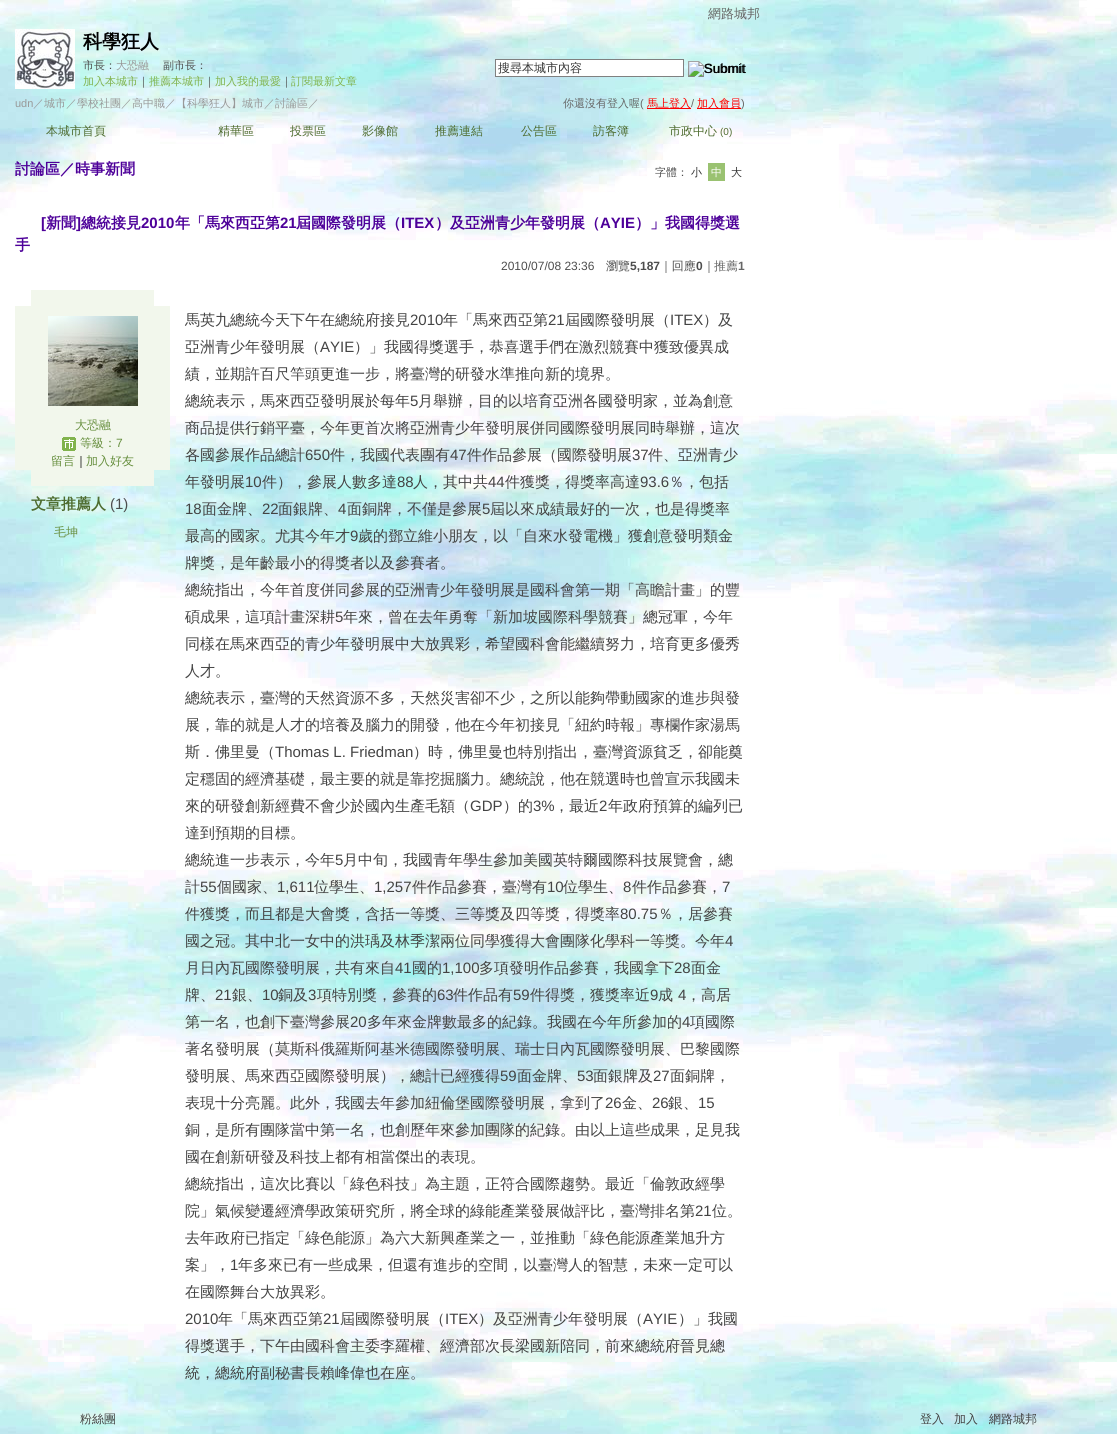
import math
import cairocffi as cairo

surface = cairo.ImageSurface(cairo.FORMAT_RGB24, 1117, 1434)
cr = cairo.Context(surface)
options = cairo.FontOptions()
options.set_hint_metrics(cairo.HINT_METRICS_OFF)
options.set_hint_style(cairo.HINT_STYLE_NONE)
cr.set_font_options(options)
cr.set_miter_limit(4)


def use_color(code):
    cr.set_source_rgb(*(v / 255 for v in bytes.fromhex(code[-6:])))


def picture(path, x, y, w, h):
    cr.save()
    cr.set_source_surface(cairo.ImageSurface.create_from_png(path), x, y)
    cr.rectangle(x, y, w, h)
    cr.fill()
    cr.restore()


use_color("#ffffff")
cr.paint()
picture("img1.png", 0, 0, 1117, 1434)
cr.select_font_face("WenQuanYi Zen Hei Medium")
cr.set_font_size(13)
use_color("#666666")
cr.move_to(708, 18)
cr.show_text("網路城邦")
picture("img2.png", 15, 29, 60, 60)
cr.select_font_face("WenQuanYi Zen Hei", cairo.FONT_SLANT_NORMAL, cairo.FONT_WEIGHT_BOLD)
cr.set_font_size(19)
use_color("#000000")
cr.move_to(83, 48)
cr.show_text("科學狂人")
cr.select_font_face("WenQuanYi Zen Hei Medium")
cr.set_font_size(11)
use_color("#4d4d4d")
cr.move_to(83, 69)
cr.show_text("市長：")
use_color("#999999")
cr.move_to(116, 69)
cr.show_text("大恐融")
use_color("#4d4d4d")
cr.move_to(163, 69)
cr.show_text("副市長：")
use_color("#81b34d")
cr.move_to(83, 85)
cr.show_text("加入本城市")
use_color("#4d4d4d")
cr.move_to(138, 85)
cr.show_text("｜")
use_color("#81b34d")
cr.move_to(149, 85)
cr.show_text("推薦本城市")
use_color("#4d4d4d")
cr.move_to(204, 85)
cr.show_text("｜")
use_color("#81b34d")
cr.move_to(215, 85)
cr.show_text("加入我的最愛")
use_color("#4d4d4d")
cr.move_to(281, 85)
cr.show_text("｜")
use_color("#81b34d")
cr.move_to(291, 85)
cr.show_text("訂閱最新文章")
use_color("#ffffff")
cr.rectangle(495.5, 59.5, 188, 17)
cr.fill_preserve()
use_color("#808080")
cr.set_line_width(1)
cr.stroke()
cr.set_font_size(12)
use_color("#333333")
cr.move_to(498, 72)
cr.show_text("搜尋本城市內容")
picture("img3.png", 688, 61, 57, 16)
cr.select_font_face("Liberation Sans")
cr.set_font_size(13.5)
use_color("#000000")
cr.move_to(704, 73)
cr.show_text("Submit")
cr.set_font_size(11)
use_color("#999999")
cr.move_to(15, 107)
cr.show_text("udn")
cr.select_font_face("WenQuanYi Zen Hei Medium")
cr.move_to(33, 107)
cr.show_text("／城市／學校社團／高中職／【科學狂人】城市／討論區／")
use_color("#666666")
cr.move_to(563, 107)
cr.show_text("你還沒有登入喔")
cr.select_font_face("Liberation Sans")
cr.move_to(640, 107)
cr.show_text("(")
use_color("#ff0000")
cr.rectangle(647, 108, 44, 1)
cr.fill()
cr.select_font_face("WenQuanYi Zen Hei Medium")
cr.move_to(647, 107)
cr.show_text("馬上登入")
cr.select_font_face("Liberation Sans")
use_color("#666666")
cr.move_to(691, 107)
cr.show_text("/")
use_color("#ff0000")
cr.rectangle(697, 108, 44, 1)
cr.fill()
cr.select_font_face("WenQuanYi Zen Hei Medium")
cr.move_to(697, 107)
cr.show_text("加入會員")
cr.select_font_face("Liberation Sans")
use_color("#666666")
cr.move_to(741, 107)
cr.show_text(")")
cr.select_font_face("WenQuanYi Zen Hei Medium")
cr.set_font_size(12)
use_color("#4e6c2f")
cr.move_to(46, 135)
cr.show_text("本城市首頁")
cr.move_to(218, 135)
cr.show_text("精華區")
cr.move_to(290, 135)
cr.show_text("投票區")
cr.move_to(362, 135)
cr.show_text("影像館")
cr.move_to(435, 135)
cr.show_text("推薦連結")
cr.move_to(521, 135)
cr.show_text("公告區")
cr.move_to(593, 135)
cr.show_text("訪客簿")
cr.move_to(669, 135)
cr.show_text("市政中心")
cr.select_font_face("Liberation Sans")
cr.set_font_size(10)
cr.move_to(720, 135)
cr.show_text("(0)")
cr.select_font_face("WenQuanYi Zen Hei", cairo.FONT_SLANT_NORMAL, cairo.FONT_WEIGHT_BOLD)
cr.set_font_size(15)
use_color("#4d0099")
cr.move_to(15, 174)
cr.show_text("討論區／時事新聞")
cr.select_font_face("WenQuanYi Zen Hei Medium")
cr.set_font_size(11)
use_color("#4d4d4d")
cr.move_to(655, 176)
cr.show_text("字體：")
use_color("#333333")
cr.move_to(691, 176)
cr.show_text("小")
use_color("#9ac271")
cr.rectangle(708, 163, 17, 18)
cr.fill()
use_color("#ffffff")
cr.move_to(711, 176)
cr.show_text("中")
use_color("#333333")
cr.move_to(731, 176)
cr.show_text("大")
cr.select_font_face("Liberation Sans", cairo.FONT_SLANT_NORMAL, cairo.FONT_WEIGHT_BOLD)
cr.set_font_size(15)
use_color("#4d0099")
cr.move_to(41, 228)
cr.show_text("[")
cr.select_font_face("WenQuanYi Zen Hei", cairo.FONT_SLANT_NORMAL, cairo.FONT_WEIGHT_BOLD)
cr.move_to(46, 228)
cr.show_text("新聞")
cr.select_font_face("Liberation Sans", cairo.FONT_SLANT_NORMAL, cairo.FONT_WEIGHT_BOLD)
cr.move_to(76, 228)
cr.show_text("]")
cr.select_font_face("WenQuanYi Zen Hei", cairo.FONT_SLANT_NORMAL, cairo.FONT_WEIGHT_BOLD)
cr.move_to(81, 228)
cr.show_text("總統接見")
cr.select_font_face("Liberation Sans", cairo.FONT_SLANT_NORMAL, cairo.FONT_WEIGHT_BOLD)
cr.move_to(141, 228)
cr.show_text("2010")
cr.select_font_face("WenQuanYi Zen Hei", cairo.FONT_SLANT_NORMAL, cairo.FONT_WEIGHT_BOLD)
cr.move_to(175, 228)
cr.show_text("年「馬來西亞第")
cr.select_font_face("Liberation Sans", cairo.FONT_SLANT_NORMAL, cairo.FONT_WEIGHT_BOLD)
cr.move_to(280, 228)
cr.show_text("21")
cr.select_font_face("WenQuanYi Zen Hei", cairo.FONT_SLANT_NORMAL, cairo.FONT_WEIGHT_BOLD)
cr.move_to(296, 228)
cr.show_text("屆國際發明展（")
cr.select_font_face("Liberation Sans", cairo.FONT_SLANT_NORMAL, cairo.FONT_WEIGHT_BOLD)
cr.move_to(401, 228)
cr.show_text("ITEX")
cr.select_font_face("WenQuanYi Zen Hei", cairo.FONT_SLANT_NORMAL, cairo.FONT_WEIGHT_BOLD)
cr.move_to(435, 228)
cr.show_text("）及亞洲青少年發明展（")
cr.select_font_face("Liberation Sans", cairo.FONT_SLANT_NORMAL, cairo.FONT_WEIGHT_BOLD)
cr.move_to(600, 228)
cr.show_text("AYIE")
cr.select_font_face("WenQuanYi Zen Hei", cairo.FONT_SLANT_NORMAL, cairo.FONT_WEIGHT_BOLD)
cr.move_to(635, 228)
cr.show_text("）」我國得獎選")
cr.move_to(15, 250)
cr.show_text("手")
cr.select_font_face("Liberation Sans")
cr.set_font_size(12)
use_color("#4d4d4d")
cr.move_to(501, 270)
cr.show_text("2010/07/08 23:36")
cr.select_font_face("WenQuanYi Zen Hei Medium")
cr.move_to(606, 270)
cr.show_text("瀏覽")
cr.select_font_face("Liberation Sans", cairo.FONT_SLANT_NORMAL, cairo.FONT_WEIGHT_BOLD)
cr.move_to(630, 270)
cr.show_text("5,187")
cr.select_font_face("WenQuanYi Zen Hei Medium")
cr.move_to(660, 270)
cr.show_text("｜回應")
cr.select_font_face("Liberation Sans", cairo.FONT_SLANT_NORMAL, cairo.FONT_WEIGHT_BOLD)
cr.move_to(696, 270)
cr.show_text("0")
cr.select_font_face("WenQuanYi Zen Hei Medium")
cr.move_to(703, 270)
cr.show_text("｜")
use_color("#666666")
cr.move_to(714, 270)
cr.show_text("推薦")
cr.select_font_face("Liberation Sans", cairo.FONT_SLANT_NORMAL, cairo.FONT_WEIGHT_BOLD)
cr.move_to(738, 270)
cr.show_text("1")
use_color("#f2f7ec")
cr.rectangle(31, 290, 123, 16)
cr.fill()
cr.rectangle(15, 306, 155, 164)
cr.fill()
picture("img4.png", 48, 316, 90, 90)
cr.select_font_face("WenQuanYi Zen Hei Medium")
use_color("#678f3e")
cr.move_to(75, 429)
cr.show_text("大恐融")
picture("img5.png", 62, 437, 14, 14)
cr.move_to(80, 447)
cr.show_text("等級：")
cr.select_font_face("Liberation Sans")
cr.move_to(116, 447)
cr.show_text("7")
cr.select_font_face("WenQuanYi Zen Hei Medium")
cr.move_to(51, 465)
cr.show_text("留言")
use_color("#000000")
cr.move_to(75, 465)
cr.show_text("｜")
use_color("#678f3e")
cr.move_to(86, 465)
cr.show_text("加入好友")
use_color("#f2f7ec")
cr.rectangle(31, 470, 123, 16)
cr.fill()
cr.select_font_face("WenQuanYi Zen Hei", cairo.FONT_SLANT_NORMAL, cairo.FONT_WEIGHT_BOLD)
cr.set_font_size(15)
use_color("#4e6c2f")
cr.move_to(31, 509)
cr.show_text("文章推薦人")
cr.select_font_face("Liberation Sans")
use_color("#4d4d4d")
cr.move_to(110, 509)
cr.show_text("(1)")
cr.select_font_face("WenQuanYi Zen Hei Medium")
cr.set_font_size(12)
use_color("#678f3e")
cr.move_to(54, 536)
cr.show_text("毛坤")
cr.set_font_size(15)
use_color("#434343")
cr.move_to(185, 325)
cr.show_text("馬英九總統今天下午在總統府接見")
cr.select_font_face("Liberation Sans")
cr.move_to(410, 325)
cr.show_text("2010")
cr.select_font_face("WenQuanYi Zen Hei Medium")
cr.move_to(443, 325)
cr.show_text("年「馬來西亞第")
cr.select_font_face("Liberation Sans")
cr.move_to(548, 325)
cr.show_text("21")
cr.select_font_face("WenQuanYi Zen Hei Medium")
cr.move_to(565, 325)
cr.show_text("屆國際發明展（")
cr.select_font_face("Liberation Sans")
cr.move_to(670, 325)
cr.show_text("ITEX")
cr.select_font_face("WenQuanYi Zen Hei Medium")
cr.move_to(703, 325)
cr.show_text("）及")
cr.move_to(185, 352)
cr.show_text("亞洲青少年發明展（")
cr.select_font_face("Liberation Sans")
cr.move_to(320, 352)
cr.show_text("AYIE")
cr.select_font_face("WenQuanYi Zen Hei Medium")
cr.move_to(354, 352)
cr.show_text("）」我國得獎選手，恭喜選手們在激烈競賽中獲致優異成")
cr.move_to(185, 379)
cr.show_text("績，並期許百尺竿頭更進一步，將臺灣的研發水準推向新的境界。")
cr.move_to(185, 406)
cr.show_text("總統表示，馬來西亞發明展於每年")
cr.select_font_face("Liberation Sans")
cr.move_to(410, 406)
cr.show_text("5")
cr.select_font_face("WenQuanYi Zen Hei Medium")
cr.move_to(418, 406)
cr.show_text("月舉辦，目的以培育亞洲各國發明家，並為創意")
cr.move_to(185, 433)
cr.show_text("商品提供行銷平臺，今年更首次將亞洲青少年發明展併同國際發明展同時舉辦，這次")
cr.move_to(185, 460)
cr.show_text("各國參展作品總計")
cr.select_font_face("Liberation Sans")
cr.move_to(305, 460)
cr.show_text("650")
cr.select_font_face("WenQuanYi Zen Hei Medium")
cr.move_to(330, 460)
cr.show_text("件，我國代表團有")
cr.select_font_face("Liberation Sans")
cr.move_to(450, 460)
cr.show_text("47")
cr.select_font_face("WenQuanYi Zen Hei Medium")
cr.move_to(467, 460)
cr.show_text("件作品參展（國際發明展")
cr.select_font_face("Liberation Sans")
cr.move_to(632, 460)
cr.show_text("37")
cr.select_font_face("WenQuanYi Zen Hei Medium")
cr.move_to(648, 460)
cr.show_text("件、亞洲青少")
cr.move_to(185, 487)
cr.show_text("年發明展")
cr.select_font_face("Liberation Sans")
cr.move_to(245, 487)
cr.show_text("10")
cr.select_font_face("WenQuanYi Zen Hei Medium")
cr.move_to(262, 487)
cr.show_text("件），參展人數多達")
cr.select_font_face("Liberation Sans")
cr.move_to(397, 487)
cr.show_text("88")
cr.select_font_face("WenQuanYi Zen Hei Medium")
cr.move_to(413, 487)
cr.show_text("人，其中共")
cr.select_font_face("Liberation Sans")
cr.move_to(488, 487)
cr.show_text("44")
cr.select_font_face("WenQuanYi Zen Hei Medium")
cr.move_to(505, 487)
cr.show_text("件獲獎，得獎率高達")
cr.select_font_face("Liberation Sans")
cr.move_to(640, 487)
cr.show_text("93.6")
cr.select_font_face("WenQuanYi Zen Hei Medium")
cr.move_to(669, 487)
cr.show_text("％，包括")
cr.select_font_face("Liberation Sans")
cr.move_to(185, 514)
cr.show_text("18")
cr.select_font_face("WenQuanYi Zen Hei Medium")
cr.move_to(202, 514)
cr.show_text("面金牌、")
cr.select_font_face("Liberation Sans")
cr.move_to(262, 514)
cr.show_text("22")
cr.select_font_face("WenQuanYi Zen Hei Medium")
cr.move_to(278, 514)
cr.show_text("面銀牌、")
cr.select_font_face("Liberation Sans")
cr.move_to(338, 514)
cr.show_text("4")
cr.select_font_face("WenQuanYi Zen Hei Medium")
cr.move_to(347, 514)
cr.show_text("面銅牌，不僅是參展")
cr.select_font_face("Liberation Sans")
cr.move_to(482, 514)
cr.show_text("5")
cr.select_font_face("WenQuanYi Zen Hei Medium")
cr.move_to(490, 514)
cr.show_text("屆以來成績最好的一次，也是得獎率")
cr.move_to(185, 541)
cr.show_text("最高的國家。尤其今年才")
cr.select_font_face("Liberation Sans")
cr.move_to(350, 541)
cr.show_text("9")
cr.select_font_face("WenQuanYi Zen Hei Medium")
cr.move_to(358, 541)
cr.show_text("歲的鄧立維小朋友，以「自來水發電機」獲創意發明類金")
cr.move_to(185, 568)
cr.show_text("牌獎，是年齡最小的得獎者以及參賽者。")
cr.move_to(185, 595)
cr.show_text("總統指出，今年首度併同參展的亞洲青少年發明展是國科會第一期「高瞻計畫」的豐")
cr.move_to(185, 622)
cr.show_text("碩成果，這項計畫深耕")
cr.select_font_face("Liberation Sans")
cr.move_to(335, 622)
cr.show_text("5")
cr.select_font_face("WenQuanYi Zen Hei Medium")
cr.move_to(343, 622)
cr.show_text("年來，曾在去年勇奪「新加坡國際科學競賽」總冠軍，今年")
cr.move_to(185, 649)
cr.show_text("同樣在馬來西亞的青少年發明展中大放異彩，希望國科會能繼續努力，培育更多優秀")
cr.move_to(185, 676)
cr.show_text("人才。")
cr.move_to(185, 703)
cr.show_text("總統表示，臺灣的天然資源不多，天然災害卻不少，之所以能夠帶動國家的進步與發")
cr.move_to(185, 730)
cr.show_text("展，靠的就是人才的培養及腦力的開發，他在今年初接見「紐約時報」專欄作家湯馬")
cr.move_to(185, 757)
cr.show_text("斯．佛里曼（")
cr.select_font_face("Liberation Sans")
cr.move_to(275, 757)
cr.show_text("Thomas L. Friedman")
cr.select_font_face("WenQuanYi Zen Hei Medium")
cr.move_to(413, 757)
cr.show_text("）時，佛里曼也特別指出，臺灣資源貧乏，卻能奠")
cr.move_to(185, 784)
cr.show_text("定穩固的經濟基礎，最主要的就是靠挖掘腦力。總統說，他在競選時也曾宣示我國未")
cr.move_to(185, 811)
cr.show_text("來的研發創新經費不會少於國內生產毛額（")
cr.select_font_face("Liberation Sans")
cr.move_to(470, 811)
cr.show_text("GDP")
cr.select_font_face("WenQuanYi Zen Hei Medium")
cr.move_to(503, 811)
cr.show_text("）的")
cr.select_font_face("Liberation Sans")
cr.move_to(533, 811)
cr.show_text("3%")
cr.select_font_face("WenQuanYi Zen Hei Medium")
cr.move_to(554, 811)
cr.show_text("，最近")
cr.select_font_face("Liberation Sans")
cr.move_to(599, 811)
cr.show_text("2")
cr.select_font_face("WenQuanYi Zen Hei Medium")
cr.move_to(608, 811)
cr.show_text("年政府預算的編列已")
cr.move_to(185, 838)
cr.show_text("達到預期的目標。")
cr.move_to(185, 865)
cr.show_text("總統進一步表示，今年")
cr.select_font_face("Liberation Sans")
cr.move_to(335, 865)
cr.show_text("5")
cr.select_font_face("WenQuanYi Zen Hei Medium")
cr.move_to(343, 865)
cr.show_text("月中旬，我國青年學生參加美國英特爾國際科技展覽會，總")
cr.move_to(185, 892)
cr.show_text("計")
cr.select_font_face("Liberation Sans")
cr.move_to(200, 892)
cr.show_text("55")
cr.select_font_face("WenQuanYi Zen Hei Medium")
cr.move_to(217, 892)
cr.show_text("個國家、")
cr.select_font_face("Liberation Sans")
cr.move_to(277, 892)
cr.show_text("1,611")
cr.select_font_face("WenQuanYi Zen Hei Medium")
cr.move_to(314, 892)
cr.show_text("位學生、")
cr.select_font_face("Liberation Sans")
cr.move_to(374, 892)
cr.show_text("1,257")
cr.select_font_face("WenQuanYi Zen Hei Medium")
cr.move_to(412, 892)
cr.show_text("件作品參賽，臺灣有")
cr.select_font_face("Liberation Sans")
cr.move_to(547, 892)
cr.show_text("10")
cr.select_font_face("WenQuanYi Zen Hei Medium")
cr.move_to(563, 892)
cr.show_text("位學生、")
cr.select_font_face("Liberation Sans")
cr.move_to(623, 892)
cr.show_text("8")
cr.select_font_face("WenQuanYi Zen Hei Medium")
cr.move_to(632, 892)
cr.show_text("件作品參賽，")
cr.select_font_face("Liberation Sans")
cr.move_to(722, 892)
cr.show_text("7")
cr.select_font_face("WenQuanYi Zen Hei Medium")
cr.move_to(185, 919)
cr.show_text("件獲獎，而且都是大會獎，含括一等獎、三等獎及四等獎，得獎率")
cr.select_font_face("Liberation Sans")
cr.move_to(620, 919)
cr.show_text("80.75")
cr.select_font_face("WenQuanYi Zen Hei Medium")
cr.move_to(658, 919)
cr.show_text("％，居參賽")
cr.move_to(185, 946)
cr.show_text("國之冠。其中北一女中的洪瑀及林季潔兩位同學獲得大會團隊化學科一等獎。今年")
cr.select_font_face("Liberation Sans")
cr.move_to(725, 946)
cr.show_text("4")
cr.select_font_face("WenQuanYi Zen Hei Medium")
cr.move_to(185, 973)
cr.show_text("月日內瓦國際發明展，共有來自")
cr.select_font_face("Liberation Sans")
cr.move_to(395, 973)
cr.show_text("41")
cr.select_font_face("WenQuanYi Zen Hei Medium")
cr.move_to(412, 973)
cr.show_text("國的")
cr.select_font_face("Liberation Sans")
cr.move_to(442, 973)
cr.show_text("1,100")
cr.select_font_face("WenQuanYi Zen Hei Medium")
cr.move_to(479, 973)
cr.show_text("多項發明作品參賽，我國拿下")
cr.select_font_face("Liberation Sans")
cr.move_to(674, 973)
cr.show_text("28")
cr.select_font_face("WenQuanYi Zen Hei Medium")
cr.move_to(691, 973)
cr.show_text("面金")
cr.move_to(185, 1000)
cr.show_text("牌、")
cr.select_font_face("Liberation Sans")
cr.move_to(215, 1000)
cr.show_text("21")
cr.select_font_face("WenQuanYi Zen Hei Medium")
cr.move_to(232, 1000)
cr.show_text("銀、")
cr.select_font_face("Liberation Sans")
cr.move_to(262, 1000)
cr.show_text("10")
cr.select_font_face("WenQuanYi Zen Hei Medium")
cr.move_to(278, 1000)
cr.show_text("銅及")
cr.select_font_face("Liberation Sans")
cr.move_to(308, 1000)
cr.show_text("3")
cr.select_font_face("WenQuanYi Zen Hei Medium")
cr.move_to(317, 1000)
cr.show_text("項特別獎，參賽的")
cr.select_font_face("Liberation Sans")
cr.move_to(437, 1000)
cr.show_text("63")
cr.select_font_face("WenQuanYi Zen Hei Medium")
cr.move_to(453, 1000)
cr.show_text("件作品有")
cr.select_font_face("Liberation Sans")
cr.move_to(513, 1000)
cr.show_text("59")
cr.select_font_face("WenQuanYi Zen Hei Medium")
cr.move_to(530, 1000)
cr.show_text("件得獎，獲獎率近")
cr.select_font_face("Liberation Sans")
cr.move_to(650, 1000)
cr.show_text("9")
cr.select_font_face("WenQuanYi Zen Hei Medium")
cr.move_to(658, 1000)
cr.show_text("成")
cr.select_font_face("Liberation Sans")
cr.move_to(678, 1000)
cr.show_text("4")
cr.select_font_face("WenQuanYi Zen Hei Medium")
cr.move_to(686, 1000)
cr.show_text("，高居")
cr.move_to(185, 1027)
cr.show_text("第一名，也創下臺灣參展")
cr.select_font_face("Liberation Sans")
cr.move_to(350, 1027)
cr.show_text("20")
cr.select_font_face("WenQuanYi Zen Hei Medium")
cr.move_to(367, 1027)
cr.show_text("多年來金牌數最多的紀錄。我國在今年所參加的")
cr.select_font_face("Liberation Sans")
cr.move_to(682, 1027)
cr.show_text("4")
cr.select_font_face("WenQuanYi Zen Hei Medium")
cr.move_to(690, 1027)
cr.show_text("項國際")
cr.move_to(185, 1054)
cr.show_text("著名發明展（莫斯科俄羅斯阿基米德國際發明展、瑞士日內瓦國際發明展、巴黎國際")
cr.move_to(185, 1081)
cr.show_text("發明展、馬來西亞國際發明展），總計已經獲得")
cr.select_font_face("Liberation Sans")
cr.move_to(500, 1081)
cr.show_text("59")
cr.select_font_face("WenQuanYi Zen Hei Medium")
cr.move_to(517, 1081)
cr.show_text("面金牌、")
cr.select_font_face("Liberation Sans")
cr.move_to(577, 1081)
cr.show_text("53")
cr.select_font_face("WenQuanYi Zen Hei Medium")
cr.move_to(593, 1081)
cr.show_text("面銀牌及")
cr.select_font_face("Liberation Sans")
cr.move_to(653, 1081)
cr.show_text("27")
cr.select_font_face("WenQuanYi Zen Hei Medium")
cr.move_to(670, 1081)
cr.show_text("面銅牌，")
cr.move_to(185, 1108)
cr.show_text("表現十分亮麗。此外，我國去年參加紐倫堡國際發明展，拿到了")
cr.select_font_face("Liberation Sans")
cr.move_to(605, 1108)
cr.show_text("26")
cr.select_font_face("WenQuanYi Zen Hei Medium")
cr.move_to(622, 1108)
cr.show_text("金、")
cr.select_font_face("Liberation Sans")
cr.move_to(652, 1108)
cr.show_text("26")
cr.select_font_face("WenQuanYi Zen Hei Medium")
cr.move_to(668, 1108)
cr.show_text("銀、")
cr.select_font_face("Liberation Sans")
cr.move_to(698, 1108)
cr.show_text("15")
cr.select_font_face("WenQuanYi Zen Hei Medium")
cr.move_to(185, 1135)
cr.show_text("銅，是所有團隊當中第一名，也創歷年來參加團隊的紀錄。由以上這些成果，足見我")
cr.move_to(185, 1162)
cr.show_text("國在創新研發及科技上都有相當傑出的表現。")
cr.move_to(185, 1189)
cr.show_text("總統指出，這次比賽以「綠色科技」為主題，正符合國際趨勢。最近「倫敦政經學")
cr.move_to(185, 1216)
cr.show_text("院」氣候變遷經濟學政策研究所，將全球的綠能產業發展做評比，臺灣排名第")
cr.select_font_face("Liberation Sans")
cr.move_to(695, 1216)
cr.show_text("21")
cr.select_font_face("WenQuanYi Zen Hei Medium")
cr.move_to(712, 1216)
cr.show_text("位。")
cr.move_to(185, 1243)
cr.show_text("去年政府已指定「綠色能源」為六大新興產業之一，並推動「綠色能源產業旭升方")
cr.move_to(185, 1270)
cr.show_text("案」，")
cr.select_font_face("Liberation Sans")
cr.move_to(230, 1270)
cr.show_text("1")
cr.select_font_face("WenQuanYi Zen Hei Medium")
cr.move_to(238, 1270)
cr.show_text("年多來已有一些成果，但還有進步的空間，以臺灣人的智慧，未來一定可以")
cr.move_to(185, 1297)
cr.show_text("在國際舞台大放異彩。")
cr.select_font_face("Liberation Sans")
cr.move_to(185, 1324)
cr.show_text("2010")
cr.select_font_face("WenQuanYi Zen Hei Medium")
cr.move_to(218, 1324)
cr.show_text("年「馬來西亞第")
cr.select_font_face("Liberation Sans")
cr.move_to(323, 1324)
cr.show_text("21")
cr.select_font_face("WenQuanYi Zen Hei Medium")
cr.move_to(340, 1324)
cr.show_text("屆國際發明展（")
cr.select_font_face("Liberation Sans")
cr.move_to(445, 1324)
cr.show_text("ITEX")
cr.select_font_face("WenQuanYi Zen Hei Medium")
cr.move_to(478, 1324)
cr.show_text("）及亞洲青少年發明展（")
cr.select_font_face("Liberation Sans")
cr.move_to(643, 1324)
cr.show_text("AYIE")
cr.select_font_face("WenQuanYi Zen Hei Medium")
cr.move_to(678, 1324)
cr.show_text("）」我國")
cr.move_to(185, 1351)
cr.show_text("得獎選手，下午由國科會主委李羅權、經濟部次長梁國新陪同，前來總統府晉見總")
cr.move_to(185, 1378)
cr.show_text("統，總統府副秘書長賴峰偉也在座。")
cr.set_font_size(12)
cr.move_to(80, 1423)
cr.show_text("粉絲團")
cr.move_to(920, 1423)
cr.show_text("登入")
cr.move_to(954, 1423)
cr.show_text("加入")
cr.move_to(989, 1423)
cr.show_text("網路城邦")
surface.write_to_png("result.png")
